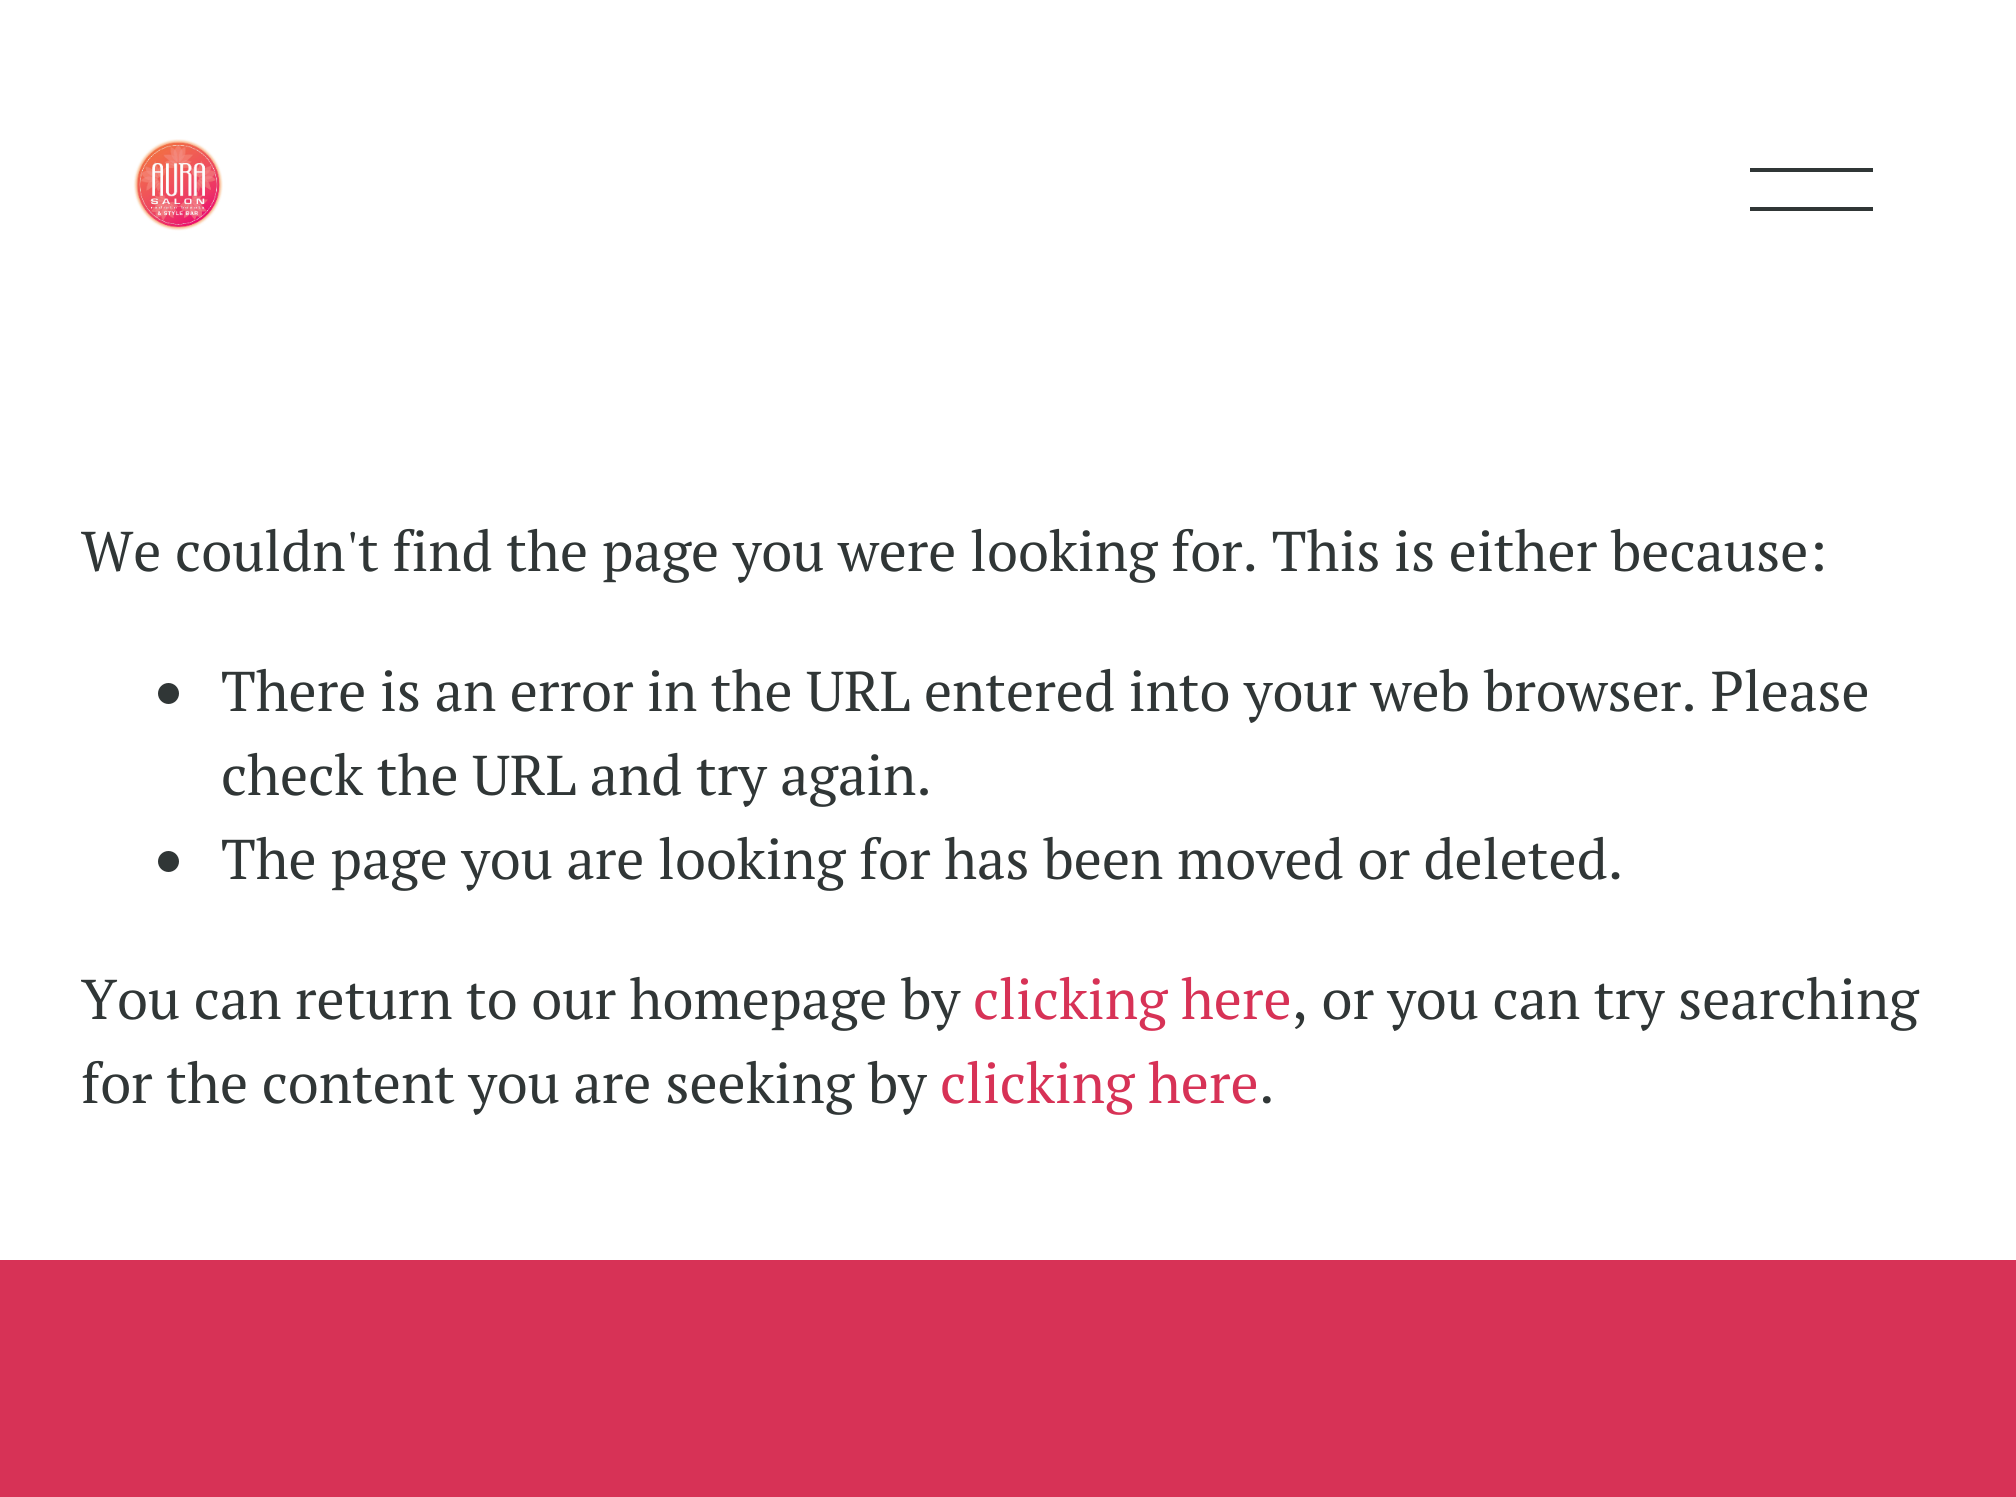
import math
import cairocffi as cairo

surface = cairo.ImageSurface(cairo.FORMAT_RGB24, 2016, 1497)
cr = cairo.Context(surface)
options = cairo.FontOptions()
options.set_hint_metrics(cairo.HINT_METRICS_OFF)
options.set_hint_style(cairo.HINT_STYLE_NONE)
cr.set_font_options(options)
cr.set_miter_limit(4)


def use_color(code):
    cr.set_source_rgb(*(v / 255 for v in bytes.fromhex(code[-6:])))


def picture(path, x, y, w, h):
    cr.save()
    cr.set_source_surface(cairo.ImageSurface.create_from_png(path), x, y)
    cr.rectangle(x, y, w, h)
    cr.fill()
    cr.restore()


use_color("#ffffff")
cr.paint()
picture("img1.png", 133, 139, 90, 92)
use_color("#303636")
cr.rectangle(1750, 168, 123, 4)
cr.fill()
cr.rectangle(1750, 207, 123, 4)
cr.fill()
cr.select_font_face("PT Serif")
cr.set_font_size(56)
cr.move_to(81, 571)
cr.show_text("We couldn't find the page you were looking for. This is either because:")
cr.new_path()
cr.arc(168.5, 693.5, 10.5, 0, 2 * math.pi)
cr.fill()
cr.move_to(221, 711)
cr.show_text("There is an error in the URL entered into your web browser. Please")
cr.move_to(221, 795)
cr.show_text("check the URL and try again.")
cr.new_path()
cr.arc(168.5, 861.5, 10.5, 0, 2 * math.pi)
cr.fill()
cr.move_to(221, 879)
cr.show_text("The page you are looking for has been moved or deleted.")
cr.move_to(81, 1019)
cr.show_text("You can return to our homepage by")
use_color("#d73256")
cr.move_to(973, 1019)
cr.show_text("clicking here")
use_color("#303636")
cr.move_to(1292, 1019)
cr.show_text(", or you can try searching")
cr.move_to(81, 1103)
cr.show_text("for the content you are seeking by")
use_color("#d73256")
cr.move_to(940, 1103)
cr.show_text("clicking here")
use_color("#303636")
cr.move_to(1259, 1103)
cr.show_text(".")
use_color("#d73256")
cr.rectangle(0, 1260, 2016, 237)
cr.fill()
surface.write_to_png("result.png")
